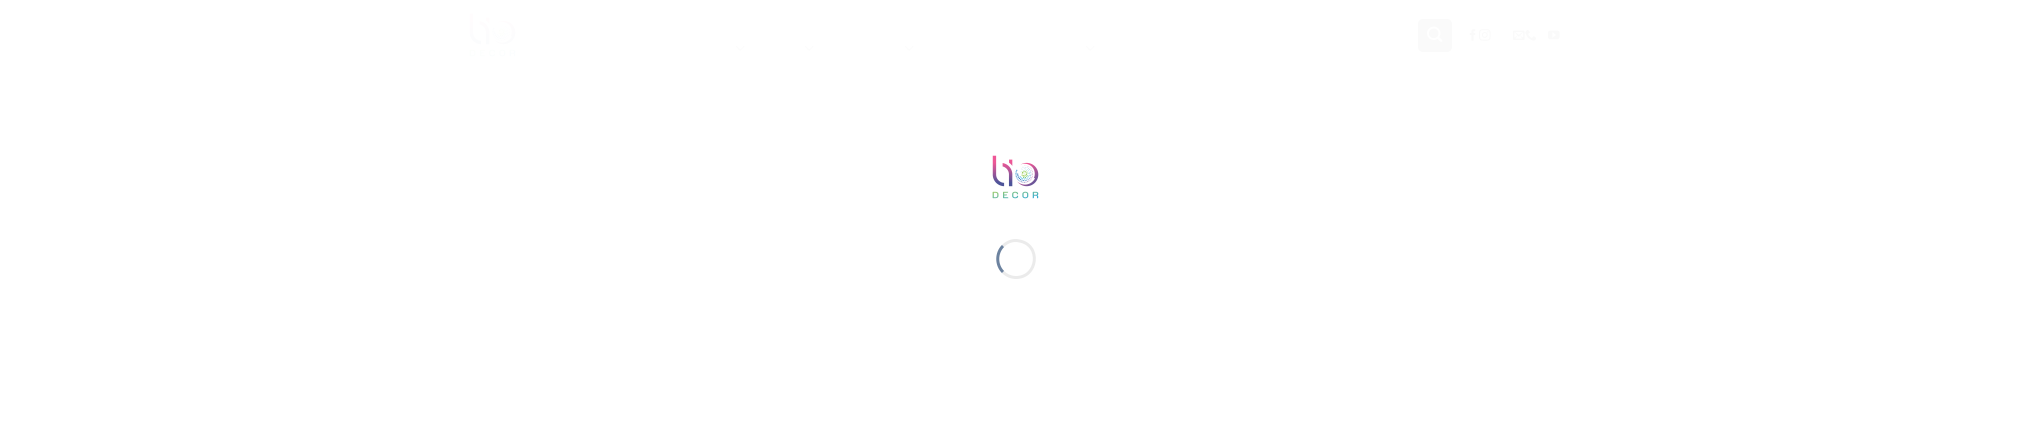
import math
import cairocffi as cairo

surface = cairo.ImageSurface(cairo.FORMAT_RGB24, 2032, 424)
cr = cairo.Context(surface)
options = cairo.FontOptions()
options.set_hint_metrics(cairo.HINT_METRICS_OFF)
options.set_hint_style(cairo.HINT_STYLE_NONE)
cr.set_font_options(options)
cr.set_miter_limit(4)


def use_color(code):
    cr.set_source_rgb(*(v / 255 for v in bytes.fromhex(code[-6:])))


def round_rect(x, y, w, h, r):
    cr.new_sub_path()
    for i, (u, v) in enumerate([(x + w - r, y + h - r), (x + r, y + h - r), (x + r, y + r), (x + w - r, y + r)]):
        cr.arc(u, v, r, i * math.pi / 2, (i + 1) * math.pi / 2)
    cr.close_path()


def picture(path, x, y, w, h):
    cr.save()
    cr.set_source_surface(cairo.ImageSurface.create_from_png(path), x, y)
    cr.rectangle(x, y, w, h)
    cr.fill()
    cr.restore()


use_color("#ffffff")
cr.paint()
picture("img1.png", 469, 13, 47, 44)
picture("img2.png", 735, 45, 10, 6)
picture("img2.png", 804, 45, 10, 6)
picture("img2.png", 904, 45, 10, 6)
picture("img2.png", 1085, 45, 10, 6)
use_color("#fafafa")
round_rect(1418, 19, 34, 33, 5)
cr.fill()
picture("img3.png", 1427, 26, 16, 16)
picture("img4.png", 1469, 29, 7, 12)
picture("img5.png", 1479, 29, 12, 12)
picture("img6.png", 1513, 30, 12, 10)
picture("img7.png", 1525, 29, 12, 12)
picture("img8.png", 1548, 30, 12, 10)
picture("img9.png", 992, 155, 47, 44)
cr.new_path()
cr.move_to(1003, 246)
cr.curve_to(1007.5, 241.5, 1013.5, 239.5, 1019.5, 241)
cr.curve_to(1041.5, 245, 1038, 277.5, 1016, 277.5)
cr.curve_to(1011, 277.5, 1006.5, 275.5, 1003, 272)
use_color("#ebebeb")
cr.set_line_width(3)
cr.stroke()
cr.new_path()
cr.move_to(1003, 272)
cr.curve_to(996, 265, 996, 253, 1003, 246)
use_color("#6c829f")
cr.stroke()
surface.write_to_png("result.png")
